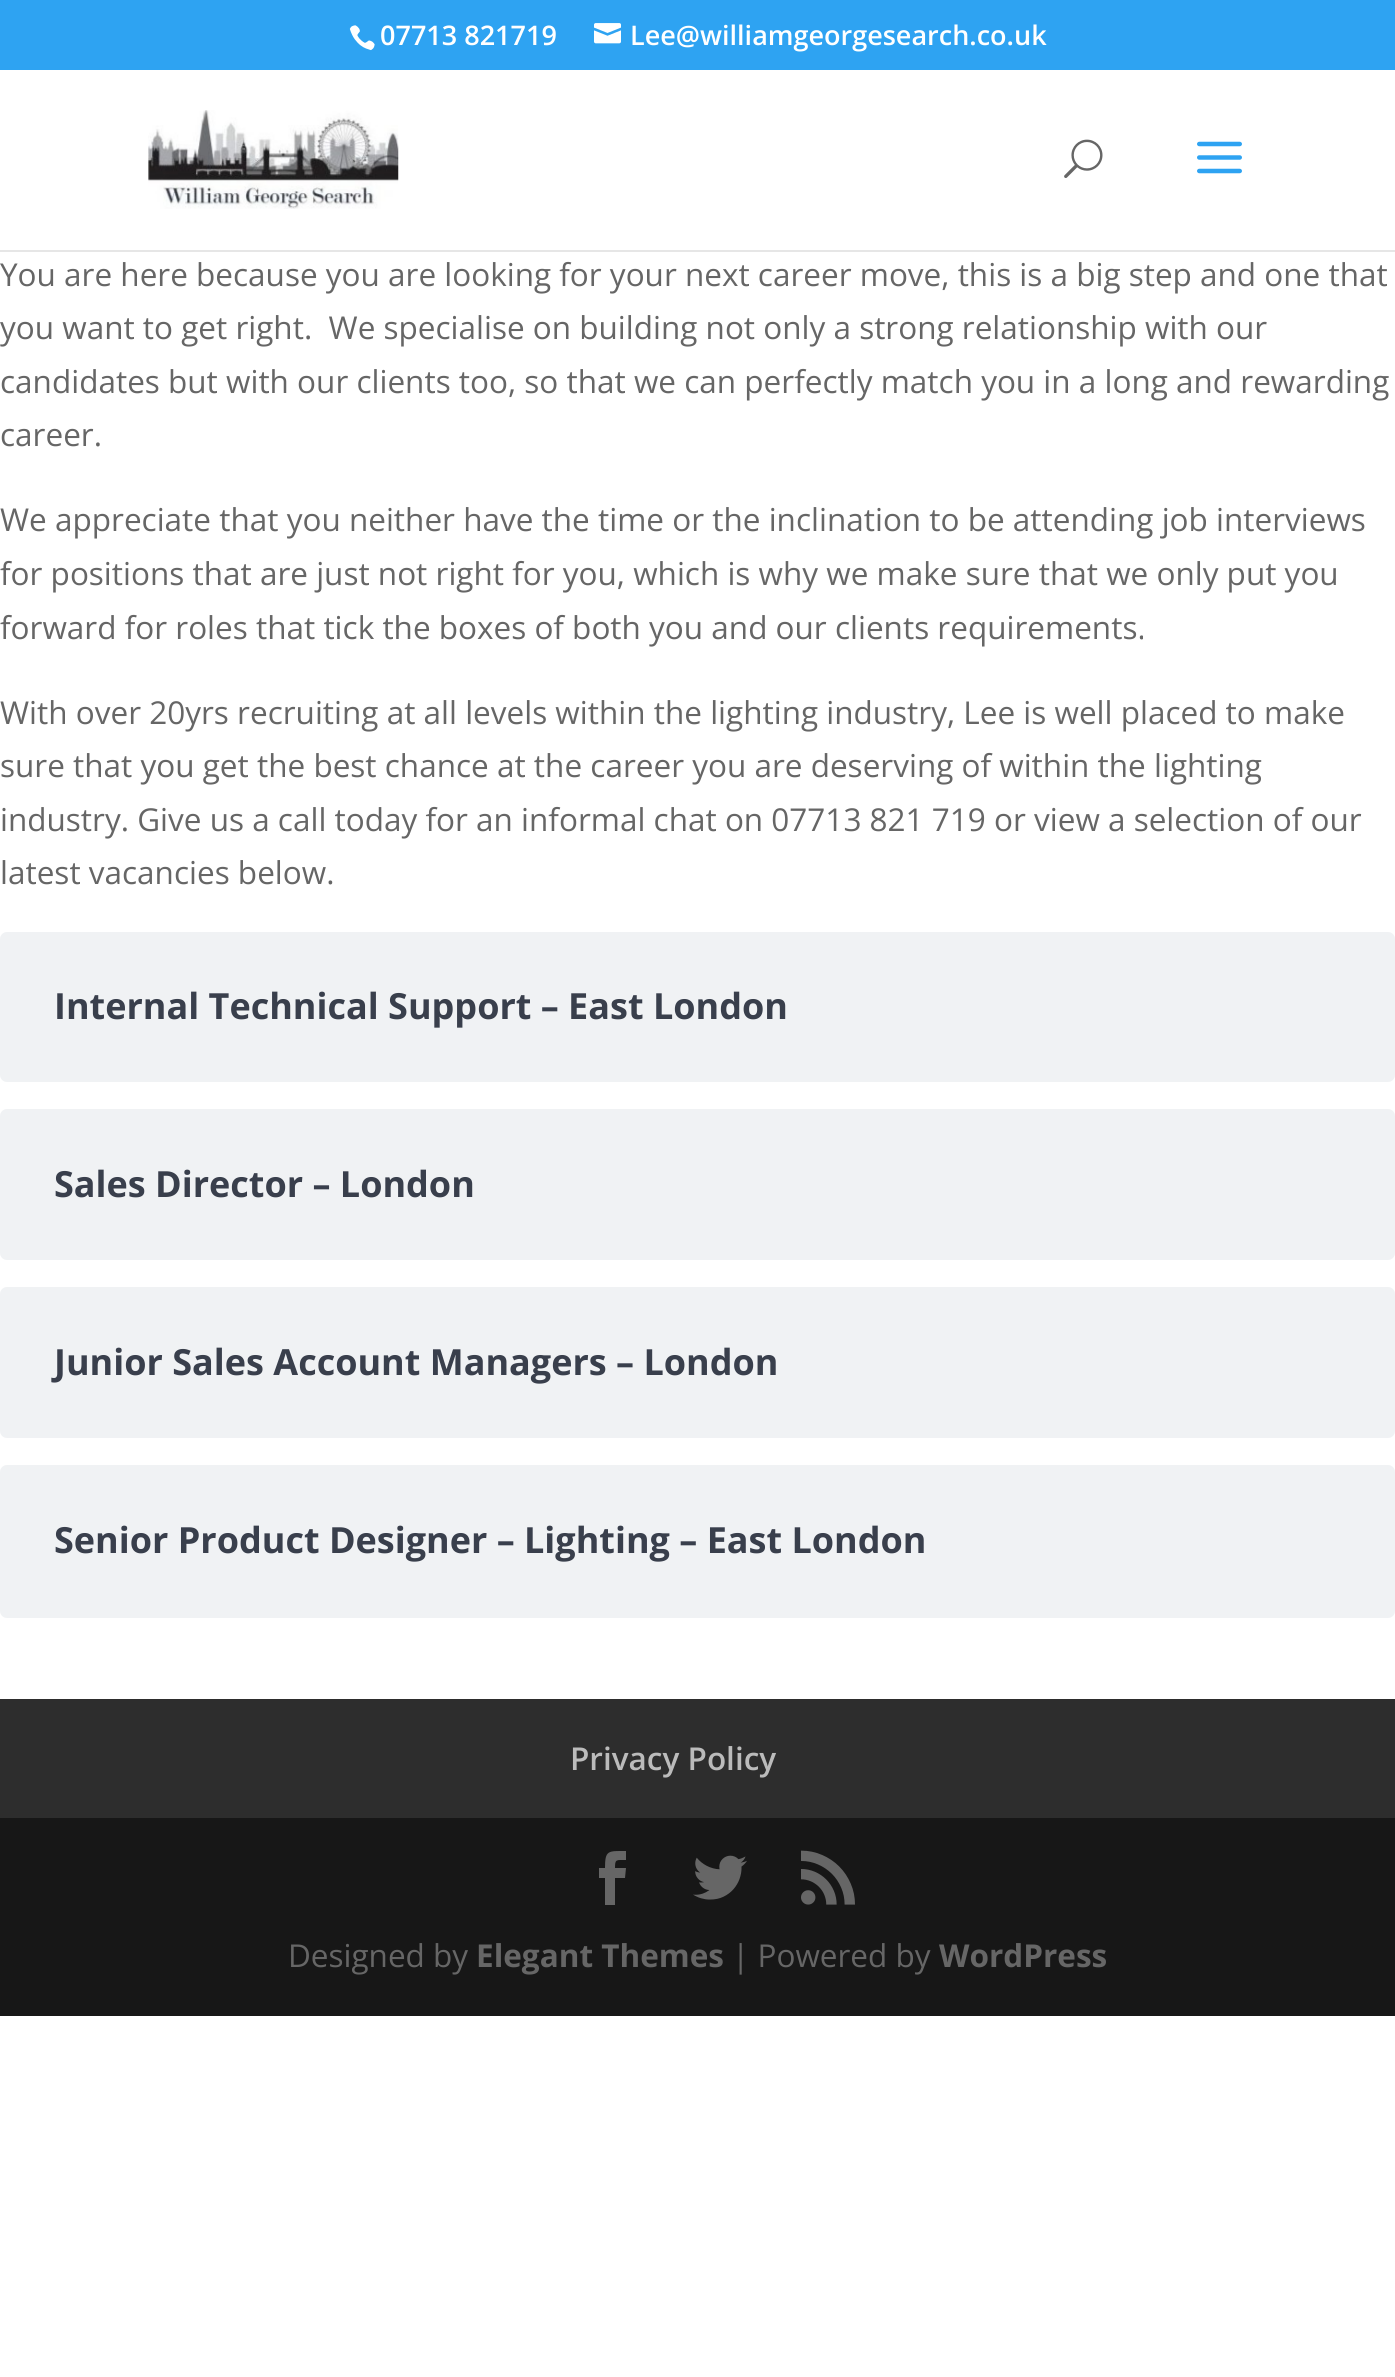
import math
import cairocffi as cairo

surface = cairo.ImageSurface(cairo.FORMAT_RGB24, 1395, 2377)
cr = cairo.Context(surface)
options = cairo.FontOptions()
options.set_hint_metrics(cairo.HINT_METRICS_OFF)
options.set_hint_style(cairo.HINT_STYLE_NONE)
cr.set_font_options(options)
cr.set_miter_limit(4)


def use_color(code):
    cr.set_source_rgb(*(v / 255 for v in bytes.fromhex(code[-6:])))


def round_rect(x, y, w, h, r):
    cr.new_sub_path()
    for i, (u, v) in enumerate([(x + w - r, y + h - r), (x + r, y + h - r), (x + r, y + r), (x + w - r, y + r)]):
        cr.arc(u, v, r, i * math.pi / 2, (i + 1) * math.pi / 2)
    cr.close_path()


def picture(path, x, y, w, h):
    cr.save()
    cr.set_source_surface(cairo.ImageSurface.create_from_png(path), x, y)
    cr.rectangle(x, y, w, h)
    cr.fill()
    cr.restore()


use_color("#ffffff")
cr.paint()
use_color("#2ea3f2")
cr.rectangle(0, 0, 1395, 70)
cr.fill()
picture("img1.png", 349, 25, 26, 26)
cr.select_font_face("Open Sans SemiBold")
cr.set_font_size(27)
use_color("#ffffff")
cr.move_to(380, 45)
cr.show_text("07713 821719")
picture("img2.png", 594, 23, 27, 21)
cr.move_to(630, 45)
cr.show_text("Lee@williamgeorgesearch.co.uk")
use_color("#e6e6e6")
cr.rectangle(0, 250, 1395, 2)
cr.fill()
picture("img3.png", 148, 110, 251, 99)
picture("img4.png", 1064, 139, 39, 39)
picture("img5.png", 1197, 141, 45, 33)
cr.select_font_face("Open Sans")
cr.set_font_size(31.5)
use_color("#666666")
cr.move_to(0, 286)
cr.show_text("You are here because you are looking for your next career move, this is a big step and one that")
cr.move_to(0, 339)
cr.show_text("you want to get right.  We specialise on building not only a strong relationship with our")
cr.move_to(0, 393)
cr.show_text("candidates but with our clients too, so that we can perfectly match you in a long and rewarding")
cr.move_to(0, 446)
cr.show_text("career.")
cr.move_to(0, 531)
cr.show_text("We appreciate that you neither have the time or the inclination to be attending job interviews")
cr.move_to(0, 585)
cr.show_text("for positions that are just not right for you, which is why we make sure that we only put you")
cr.move_to(0, 639)
cr.show_text("forward for roles that tick the boxes of both you and our clients requirements.")
cr.move_to(0, 724)
cr.show_text("With over 20yrs recruiting at all levels within the lighting industry, Lee is well placed to make")
cr.move_to(0, 777)
cr.show_text("sure that you get the best chance at the career you are deserving of within the lighting")
cr.move_to(0, 831)
cr.show_text("industry. Give us a call today for an informal chat on 07713 821 719 or view a selection of our")
cr.move_to(0, 884)
cr.show_text("latest vacancies below.")
use_color("#f0f2f4")
round_rect(0, 932, 1395, 150, 7)
cr.fill()
cr.select_font_face("Open Sans", cairo.FONT_SLANT_NORMAL, cairo.FONT_WEIGHT_BOLD)
cr.set_font_size(36)
use_color("#393f4c")
cr.move_to(54, 1019)
cr.show_text("Internal Technical Support – East London")
use_color("#f0f2f4")
round_rect(0, 1109, 1395, 151, 7)
cr.fill()
use_color("#393f4c")
cr.move_to(54, 1197)
cr.show_text("Sales Director – London")
use_color("#f0f2f4")
round_rect(0, 1287, 1395, 151, 7)
cr.fill()
use_color("#393f4c")
cr.move_to(54, 1375)
cr.show_text("Junior Sales Account Managers – London")
use_color("#f0f2f4")
round_rect(0, 1465, 1395, 153, 7)
cr.fill()
use_color("#393f4c")
cr.move_to(54, 1553)
cr.show_text("Senior Product Designer – Lighting – East London")
use_color("#2d2d2d")
cr.rectangle(0, 1699, 1395, 119)
cr.fill()
cr.select_font_face("Open Sans SemiBold")
cr.set_font_size(31.5)
use_color("#bbbbbb")
cr.move_to(570, 1770)
cr.show_text("Privacy Policy")
use_color("#171717")
cr.rectangle(0, 1818, 1395, 198)
cr.fill()
use_color("#666666")
cr.new_path()
cr.move_to(605, 1905)
cr.line_to(615, 1905)
cr.line_to(615, 1878)
cr.line_to(625, 1878)
cr.line_to(626, 1868)
cr.line_to(615, 1868)
cr.curve_to(615, 1859, 616, 1860, 626, 1860)
cr.line_to(626, 1851)
cr.curve_to(608, 1851, 605, 1850, 605, 1868)
cr.line_to(599, 1868)
cr.line_to(599, 1878)
cr.line_to(605, 1878)
cr.close_path()
cr.fill()
picture("img6.png", 693, 1855, 54, 45)
picture("img7.png", 801, 1850, 54, 55)
cr.select_font_face("Open Sans")
cr.move_to(288, 1967)
cr.show_text("Designed by")
cr.select_font_face("Open Sans", cairo.FONT_SLANT_NORMAL, cairo.FONT_WEIGHT_BOLD)
cr.move_to(476, 1967)
cr.show_text("Elegant Themes")
cr.select_font_face("Open Sans")
cr.move_to(732, 1967)
cr.show_text("| Powered by")
cr.select_font_face("Open Sans", cairo.FONT_SLANT_NORMAL, cairo.FONT_WEIGHT_BOLD)
cr.move_to(939, 1967)
cr.show_text("WordPress")
surface.write_to_png("result.png")
